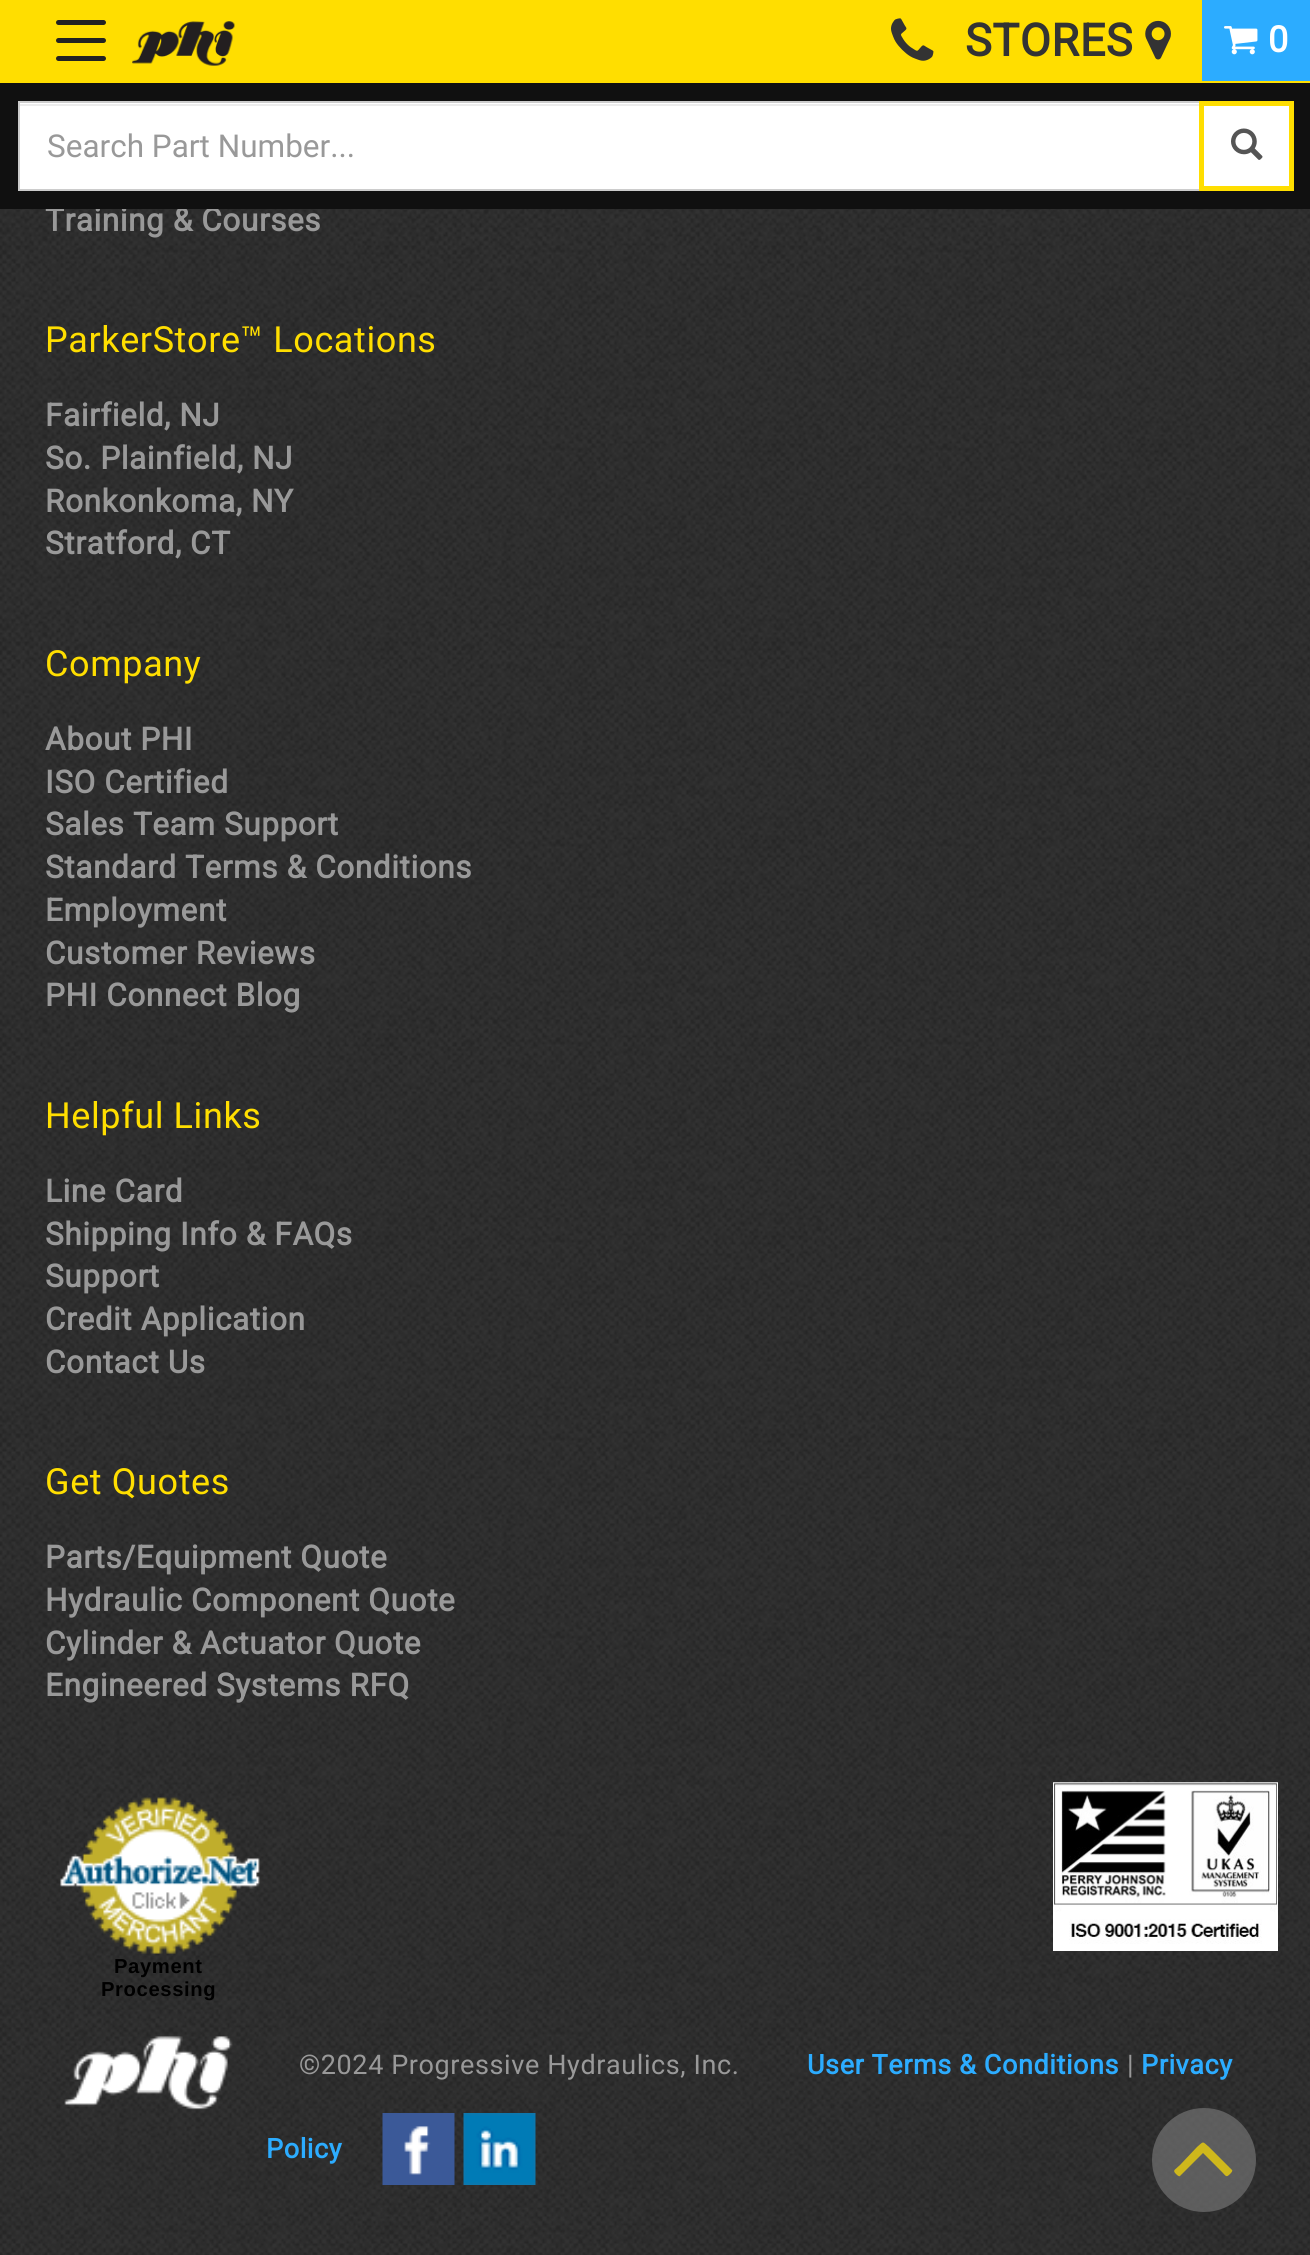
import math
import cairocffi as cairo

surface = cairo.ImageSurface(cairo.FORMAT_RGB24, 1310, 2255)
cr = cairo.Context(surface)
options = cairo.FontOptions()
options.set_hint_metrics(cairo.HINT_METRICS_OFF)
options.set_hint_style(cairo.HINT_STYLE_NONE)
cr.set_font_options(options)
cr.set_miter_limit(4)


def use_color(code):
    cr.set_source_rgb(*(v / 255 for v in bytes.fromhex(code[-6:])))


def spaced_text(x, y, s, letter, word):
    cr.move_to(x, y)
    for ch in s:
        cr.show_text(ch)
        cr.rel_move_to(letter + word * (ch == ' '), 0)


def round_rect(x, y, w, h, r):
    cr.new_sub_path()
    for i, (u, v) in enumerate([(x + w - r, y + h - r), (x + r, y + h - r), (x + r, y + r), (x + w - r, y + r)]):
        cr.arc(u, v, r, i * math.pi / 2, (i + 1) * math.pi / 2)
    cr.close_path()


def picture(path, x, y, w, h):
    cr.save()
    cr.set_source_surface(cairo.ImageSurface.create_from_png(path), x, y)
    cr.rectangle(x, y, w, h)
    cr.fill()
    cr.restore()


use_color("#ffffff")
cr.paint()
use_color("#ffde00")
cr.rectangle(0, 0, 1310, 83)
cr.fill()
use_color("#222222")
round_rect(56, 20, 50, 5, 2.5)
cr.fill()
round_rect(56, 38, 50, 5, 2.5)
cr.fill()
round_rect(56, 56, 50, 5, 2.5)
cr.fill()
picture("img1.png", 132, 21, 103, 45)
picture("img2.png", 891, 18, 43, 43)
cr.select_font_face("Roboto", cairo.FONT_SLANT_NORMAL, cairo.FONT_WEIGHT_BOLD)
cr.set_font_size(45)
use_color("#333333")
spaced_text(965, 56, "STORES", 0.6, 0)
picture("img3.png", 1145, 20, 26, 40)
use_color("#2cacff")
cr.rectangle(1202, 0, 108, 81)
cr.fill()
picture("img4.png", 1224, 26, 34, 29)
cr.set_font_size(36)
use_color("#ffffff")
spaced_text(1268, 52, "0", 0.6, 0)
picture("img6.png", 0, 209, 1310, 2046)
cr.set_font_size(31.5)
use_color("#999999")
spaced_text(45, 231, "Training & Courses", 0.6, 0)
use_color("#101010")
cr.rectangle(0, 83, 1310, 126)
cr.fill()
use_color("#ffffff")
cr.rectangle(20, 103, 1179, 86)
cr.fill()
use_color("#ececec")
cr.rectangle(20, 104, 1179, 2)
cr.fill()
cr.rectangle(19, 102, 1182, 88)
use_color("#cccccc")
cr.stroke()
cr.select_font_face("Roboto")
use_color("#999999")
cr.move_to(47, 157)
cr.show_text("Search Part Number...")
use_color("#ffffff")
cr.rectangle(1201.5, 103.5, 90, 85)
cr.fill_preserve()
use_color("#ffde00")
cr.set_line_width(5)
cr.stroke()
picture("img5.png", 1231, 128, 32, 32)
cr.set_font_size(36)
spaced_text(45, 352, "ParkerStore™ Locations", 0.6, 0)
cr.select_font_face("Roboto", cairo.FONT_SLANT_NORMAL, cairo.FONT_WEIGHT_BOLD)
cr.set_font_size(31.5)
use_color("#999999")
spaced_text(45, 426, "Fairfield, NJ", 0.6, 0)
spaced_text(45, 469, "So. Plainfield, NJ", 0.6, 0)
spaced_text(45, 512, "Ronkonkoma, NY", 0.6, 0)
spaced_text(45, 554, "Stratford, CT", 0.6, 0)
cr.select_font_face("Roboto")
cr.set_font_size(36)
use_color("#ffde00")
spaced_text(45, 676, "Company", 0.6, 0)
cr.select_font_face("Roboto", cairo.FONT_SLANT_NORMAL, cairo.FONT_WEIGHT_BOLD)
cr.set_font_size(31.5)
use_color("#999999")
spaced_text(45, 750, "About PHI", 0.6, 0)
spaced_text(45, 793, "ISO Certified", 0.6, 0)
spaced_text(45, 835, "Sales Team Support", 0.6, 0)
spaced_text(45, 878, "Standard Terms & Conditions", 0.6, 0)
spaced_text(45, 921, "Employment", 0.6, 0)
spaced_text(45, 964, "Customer Reviews", 0.6, 0)
spaced_text(45, 1006, "PHI Connect Blog", 0.6, 0)
cr.select_font_face("Roboto")
cr.set_font_size(36)
use_color("#ffde00")
spaced_text(45, 1128, "Helpful Links", 0.6, 0)
cr.select_font_face("Roboto", cairo.FONT_SLANT_NORMAL, cairo.FONT_WEIGHT_BOLD)
cr.set_font_size(31.5)
use_color("#999999")
spaced_text(45, 1202, "Line Card", 0.6, 0)
spaced_text(45, 1245, "Shipping Info & FAQs", 0.6, 0)
spaced_text(45, 1287, "Support", 0.6, 0)
spaced_text(45, 1330, "Credit Application", 0.6, 0)
spaced_text(45, 1373, "Contact Us", 0.6, 0)
cr.select_font_face("Roboto")
cr.set_font_size(36)
use_color("#ffde00")
spaced_text(45, 1494, "Get Quotes", 0.6, 0)
cr.select_font_face("Roboto", cairo.FONT_SLANT_NORMAL, cairo.FONT_WEIGHT_BOLD)
cr.set_font_size(31.5)
use_color("#999999")
spaced_text(45, 1568, "Parts/Equipment Quote", 0.6, 0)
spaced_text(45, 1611, "Hydraulic Component Quote", 0.6, 0)
spaced_text(45, 1654, "Cylinder & Actuator Quote", 0.6, 0)
spaced_text(45, 1696, "Engineered Systems RFQ", 0.6, 0)
picture("img7.png", 1053, 1782, 225, 169)
picture("img8.png", 60, 1797, 200, 157)
cr.select_font_face("Liberation Sans", cairo.FONT_SLANT_NORMAL, cairo.FONT_WEIGHT_BOLD)
cr.set_font_size(20.25)
use_color("#000000")
spaced_text(114, 1973, "Payment", 0.6, 0)
spaced_text(101, 1996, "Processing", 0.6, 0)
picture("img9.png", 64, 2036, 169, 74)
cr.select_font_face("Roboto")
cr.set_font_size(27)
use_color("#999999")
spaced_text(299, 2074, "©2024 Progressive Hydraulics, Inc.", 0.6, 0)
cr.select_font_face("Roboto", cairo.FONT_SLANT_NORMAL, cairo.FONT_WEIGHT_BOLD)
use_color("#2cacff")
spaced_text(807, 2074, "User Terms & Conditions", 0.6, 0)
cr.select_font_face("Roboto")
use_color("#999999")
spaced_text(1127, 2074, "|", 0.6, 0)
cr.select_font_face("Roboto", cairo.FONT_SLANT_NORMAL, cairo.FONT_WEIGHT_BOLD)
use_color("#2cacff")
spaced_text(1141, 2074, "Privacy", 0.6, 0)
spaced_text(266, 2158, "Policy", 0.6, 0)
picture("img10.png", 382, 2113, 73, 72)
picture("img11.png", 463, 2113, 73, 72)
cr.set_source_rgba(0.451, 0.451, 0.451, 0.7)
cr.arc(1204, 2160, 52, 0, 2 * math.pi)
cr.fill()
cr.set_source_rgba(1, 0.871, 0, 0.7)
cr.new_path()
cr.move_to(1232, 2170)
cr.curve_to(1233, 2171, 1231, 2173, 1230, 2174)
cr.curve_to(1226, 2178, 1226, 2176, 1222, 2172)
cr.line_to(1203, 2153)
cr.line_to(1180, 2176)
cr.curve_to(1179, 2177, 1177, 2175, 1176, 2174)
cr.curve_to(1172, 2170, 1175, 2170, 1180, 2165)
cr.line_to(1197, 2147)
cr.curve_to(1204, 2141, 1202, 2141, 1209, 2147)
cr.close_path()
cr.fill()
surface.write_to_png("result.png")
